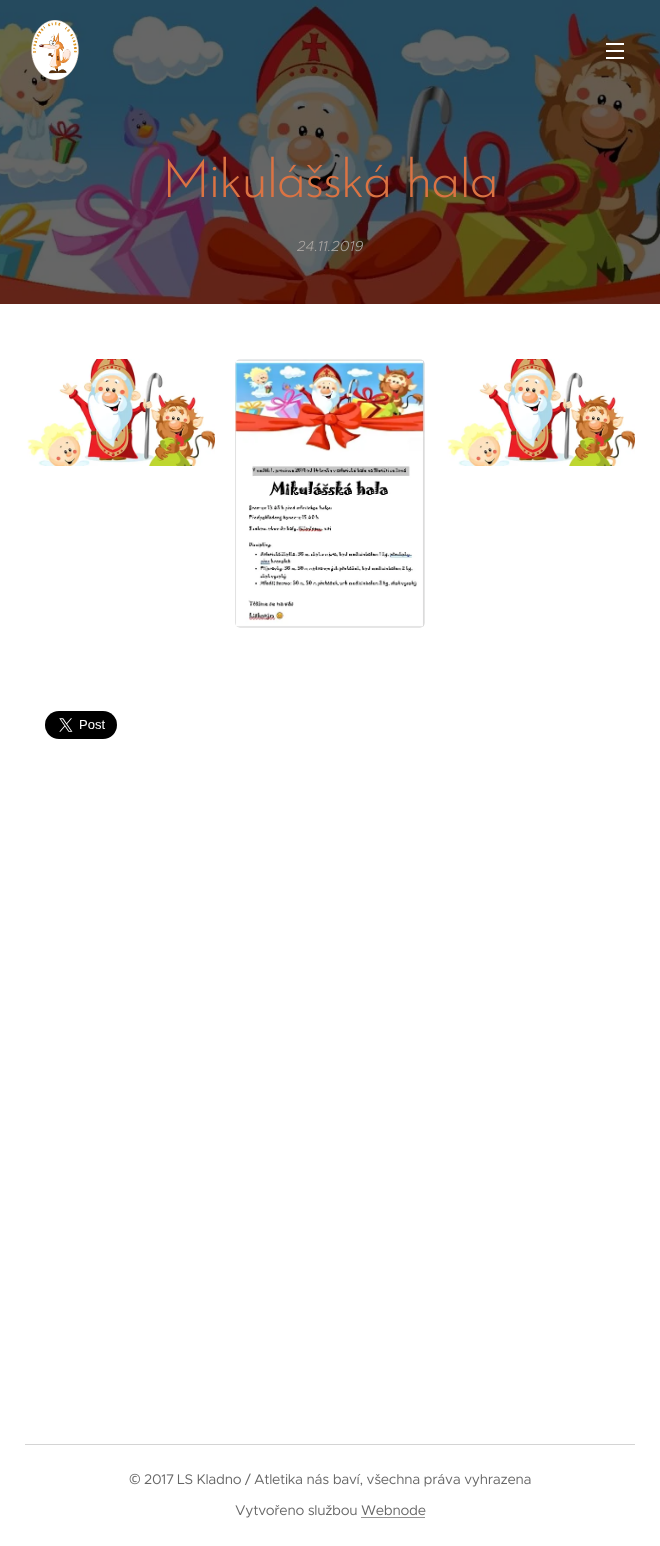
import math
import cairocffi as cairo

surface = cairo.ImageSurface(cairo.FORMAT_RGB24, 660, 1546)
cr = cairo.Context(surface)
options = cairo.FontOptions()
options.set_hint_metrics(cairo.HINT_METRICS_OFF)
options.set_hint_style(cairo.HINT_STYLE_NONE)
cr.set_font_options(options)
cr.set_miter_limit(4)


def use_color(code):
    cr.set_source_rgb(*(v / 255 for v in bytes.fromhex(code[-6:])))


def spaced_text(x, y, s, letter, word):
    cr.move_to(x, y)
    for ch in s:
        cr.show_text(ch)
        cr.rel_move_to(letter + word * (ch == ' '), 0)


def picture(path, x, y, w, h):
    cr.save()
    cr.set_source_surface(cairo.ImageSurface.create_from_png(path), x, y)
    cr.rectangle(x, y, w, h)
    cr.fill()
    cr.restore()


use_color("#ffffff")
cr.paint()
picture("img2.png", 0, 0, 660, 304)
picture("img1.png", 31, 20, 48, 60)
use_color("#ffffff")
cr.rectangle(606, 50, 18, 2)
cr.fill()
cr.rectangle(606, 43, 18, 2)
cr.fill()
cr.rectangle(606, 57, 18, 2)
cr.fill()
cr.select_font_face("Josefin Sans Light")
cr.set_font_size(53)
use_color("#db7343")
spaced_text(162, 197, "Mikulášská hala", -1.6, 0)
cr.select_font_face("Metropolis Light", cairo.FONT_SLANT_ITALIC)
cr.set_font_size(14.5)
use_color("#aaa6a2")
cr.move_to(297, 251)
cr.show_text("24.11.2019")
picture("img3.png", 27, 359, 188, 107)
picture("img4.png", 235, 359, 190, 269)
picture("img5.png", 447, 359, 188, 107)
picture("img6.png", 45, 711, 72, 28)
use_color("#d4d4d4")
cr.rectangle(25, 1444, 610, 1)
cr.fill()
cr.select_font_face("Noto Sans")
cr.set_font_size(14)
use_color("#666666")
spaced_text(129, 1484, "©", -0.3, 0)
cr.select_font_face("Metropolis")
spaced_text(144, 1484, "2017", -0.3, 0)
spaced_text(177, 1484, "LS Kladno /", -0.3, 0)
spaced_text(254, 1484, "Atletika nás baví, všechna práva vyhrazena", -0.3, 0)
spaced_text(235, 1515, "Vytvořeno službou Webnode", -0.3, 0)
use_color("#949494")
cr.rectangle(361, 1517, 64, 1)
cr.fill()
surface.write_to_png("result.png")
